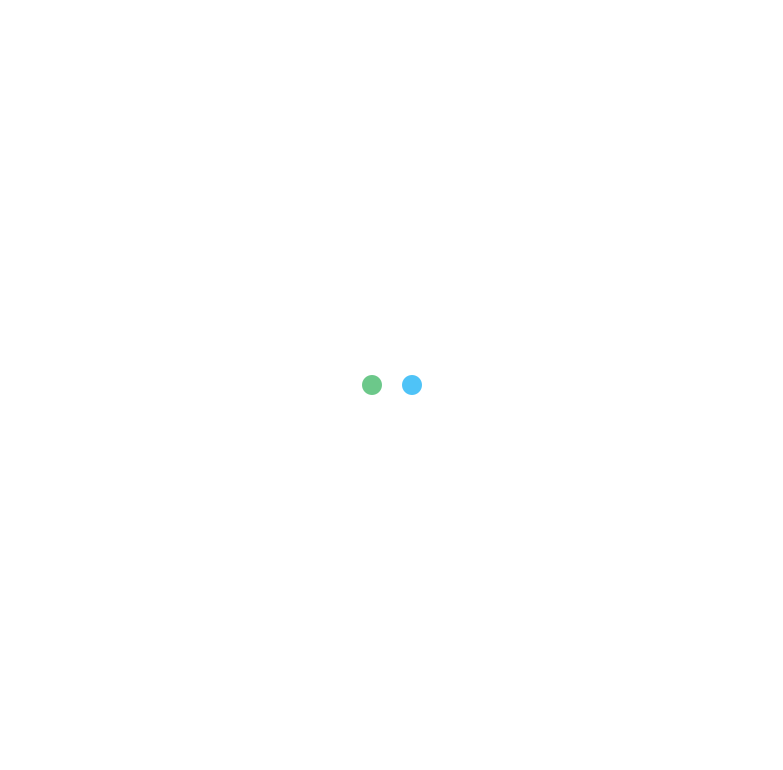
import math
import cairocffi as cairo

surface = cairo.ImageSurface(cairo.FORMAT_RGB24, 783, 770)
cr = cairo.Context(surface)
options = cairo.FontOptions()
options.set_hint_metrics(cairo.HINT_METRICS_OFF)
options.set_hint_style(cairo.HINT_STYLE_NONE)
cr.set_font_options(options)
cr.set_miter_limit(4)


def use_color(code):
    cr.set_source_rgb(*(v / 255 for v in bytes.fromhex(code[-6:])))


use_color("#ffffff")
cr.paint()
use_color("#6cc88a")
cr.arc(372, 385, 10, 0, 2 * math.pi)
cr.fill()
use_color("#4fc3f7")
cr.arc(412, 385, 10, 0, 2 * math.pi)
cr.fill()
surface.write_to_png("result.png")
